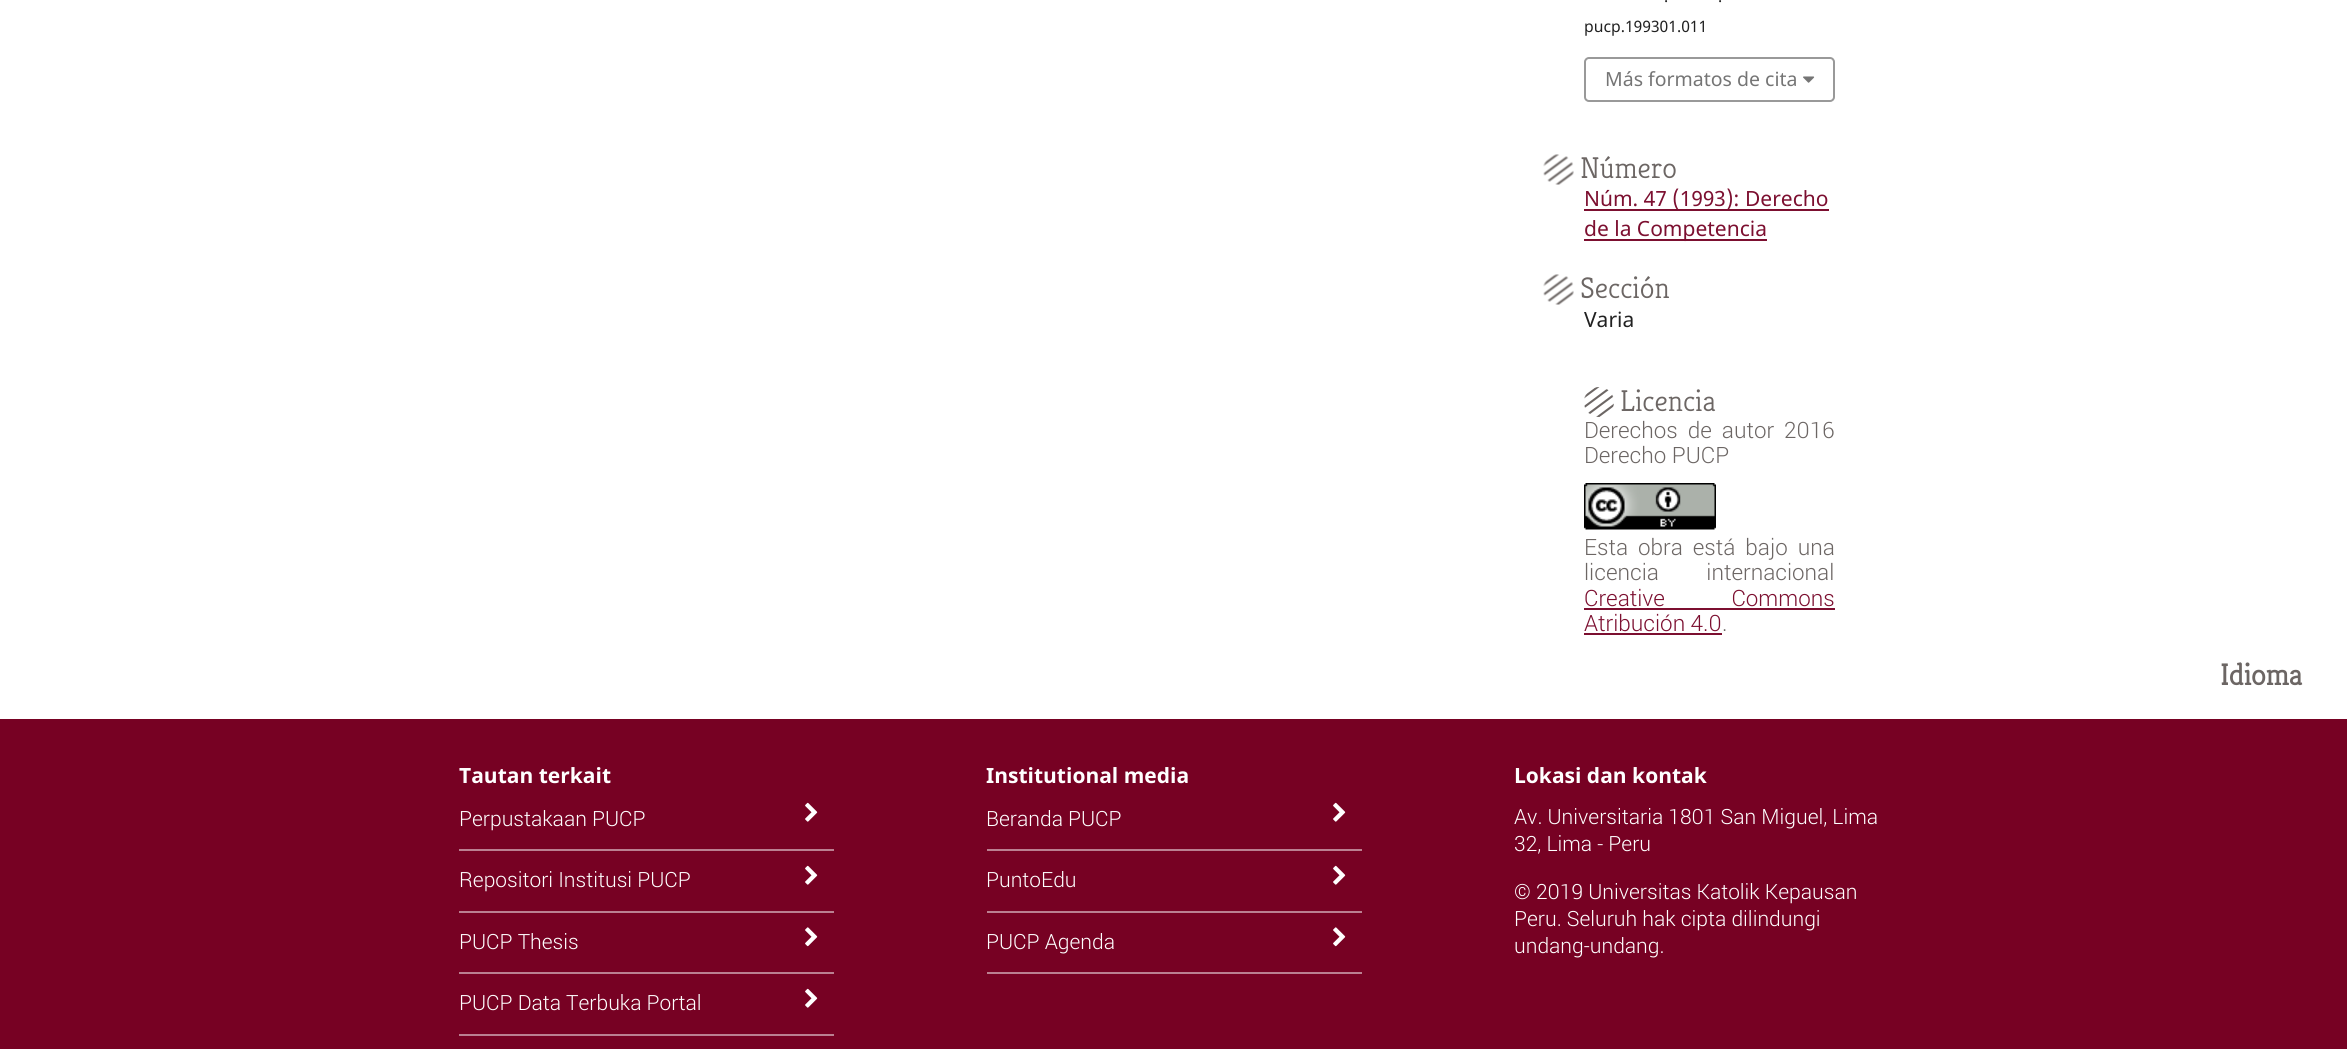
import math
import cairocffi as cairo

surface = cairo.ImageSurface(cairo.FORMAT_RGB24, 2347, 1049)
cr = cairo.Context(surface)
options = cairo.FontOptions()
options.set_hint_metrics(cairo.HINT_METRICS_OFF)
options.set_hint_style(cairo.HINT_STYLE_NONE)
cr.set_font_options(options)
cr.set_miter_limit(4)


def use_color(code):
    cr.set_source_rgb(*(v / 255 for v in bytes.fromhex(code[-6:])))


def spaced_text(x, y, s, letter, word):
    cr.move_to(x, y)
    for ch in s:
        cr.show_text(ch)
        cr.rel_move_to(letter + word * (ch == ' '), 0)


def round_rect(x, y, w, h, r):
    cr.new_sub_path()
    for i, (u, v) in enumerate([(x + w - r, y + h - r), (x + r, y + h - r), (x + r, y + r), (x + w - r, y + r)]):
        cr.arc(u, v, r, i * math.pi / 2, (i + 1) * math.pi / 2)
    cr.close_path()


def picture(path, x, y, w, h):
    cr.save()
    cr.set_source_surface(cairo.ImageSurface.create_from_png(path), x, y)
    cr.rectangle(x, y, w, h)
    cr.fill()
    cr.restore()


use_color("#ffffff")
cr.paint()
cr.select_font_face("Noto Sans")
cr.set_font_size(15.75)
use_color("#212121")
cr.move_to(1664, 2)
cr.show_text(".")
cr.move_to(1718, 2)
cr.show_text(".")
cr.move_to(1584, 32)
cr.show_text("pucp.199301.011")
round_rect(1585, 58, 249, 43, 4)
use_color("#999999")
cr.stroke()
cr.set_font_size(19.5)
use_color("#757575")
cr.move_to(1605, 86)
cr.show_text("Más formatos de cita")
picture("img1.png", 1803, 76, 12, 7)
picture("img2.png", 1543, 154, 31, 31)
cr.select_font_face("Kreon Light")
cr.set_font_size(30)
use_color("#6c6664")
cr.move_to(1580, 178)
cr.show_text("Número")
use_color("#7c0f30")
cr.rectangle(1584, 209, 245, 2)
cr.fill()
cr.select_font_face("Noto Sans")
cr.set_font_size(21)
cr.move_to(1584, 206)
cr.show_text("Núm. 47 (1993): Derecho")
cr.rectangle(1584, 239, 183, 2)
cr.fill()
cr.move_to(1584, 236)
cr.show_text("de la Competencia")
picture("img2.png", 1543, 274, 31, 31)
cr.select_font_face("Kreon Light")
cr.set_font_size(30)
use_color("#6c6664")
cr.move_to(1580, 298)
cr.show_text("Sección")
cr.select_font_face("Noto Sans")
cr.set_font_size(21)
use_color("#212121")
cr.move_to(1584, 327)
cr.show_text("Varia")
picture("img3.png", 1584, 387, 30, 30)
cr.select_font_face("Kreon Light")
cr.set_font_size(30)
use_color("#6c6664")
cr.move_to(1620, 411)
cr.show_text("Licencia")
cr.select_font_face("Roboto Light")
cr.set_font_size(22.5)
spaced_text(1584, 438, "Derechos de autor 2016", 0, 4.5)
cr.move_to(1584, 463)
cr.show_text("Derecho PUCP")
picture("img4.png", 1584, 483, 132, 47)
spaced_text(1584, 555, "Esta obra está bajo una", 0, 4.5)
spaced_text(1584, 580, "licencia internacional", 0, 42)
use_color("#7c0f30")
spaced_text(1584, 606, "Creative Commons", 0, 61)
cr.rectangle(1584, 608, 251, 2)
cr.fill()
cr.move_to(1584, 631)
cr.show_text("Atribución 4.0")
cr.rectangle(1584, 633, 138, 2)
cr.fill()
use_color("#6c6664")
cr.move_to(1722, 631)
cr.show_text(".")
cr.select_font_face("Kreon", cairo.FONT_SLANT_NORMAL, cairo.FONT_WEIGHT_BOLD)
cr.set_font_size(30)
cr.move_to(2220, 685)
cr.show_text("Idioma")
use_color("#770123")
cr.rectangle(0, 719, 2347, 330)
cr.fill()
cr.select_font_face("Noto Sans", cairo.FONT_SLANT_NORMAL, cairo.FONT_WEIGHT_BOLD)
cr.set_font_size(21)
use_color("#ffffff")
cr.move_to(459, 783)
cr.show_text("Tautan terkait")
use_color("#bb8091")
cr.rectangle(459, 849, 375, 2)
cr.fill()
cr.select_font_face("Roboto Light")
use_color("#ffffff")
cr.move_to(459, 826)
cr.show_text("Perpustakaan PUCP")
picture("img5.png", 805, 802, 13, 20)
use_color("#bb8091")
cr.rectangle(459, 911, 375, 2)
cr.fill()
use_color("#ffffff")
cr.move_to(459, 887)
cr.show_text("Repositori Institusi PUCP")
picture("img5.png", 805, 865, 13, 20)
use_color("#bb8091")
cr.rectangle(459, 972, 375, 2)
cr.fill()
use_color("#ffffff")
cr.move_to(459, 949)
cr.show_text("PUCP Thesis")
picture("img6.png", 805, 927, 13, 20)
use_color("#bb8091")
cr.rectangle(459, 1034, 375, 2)
cr.fill()
use_color("#ffffff")
cr.move_to(459, 1010)
cr.show_text("PUCP Data Terbuka Portal")
picture("img5.png", 805, 988, 13, 20)
cr.select_font_face("Noto Sans", cairo.FONT_SLANT_NORMAL, cairo.FONT_WEIGHT_BOLD)
cr.move_to(986, 783)
cr.show_text("Institutional media")
use_color("#bb8091")
cr.rectangle(987, 849, 375, 2)
cr.fill()
cr.select_font_face("Roboto Light")
use_color("#ffffff")
cr.move_to(986, 826)
cr.show_text("Beranda PUCP")
picture("img5.png", 1333, 802, 13, 20)
use_color("#bb8091")
cr.rectangle(987, 911, 375, 2)
cr.fill()
use_color("#ffffff")
cr.move_to(986, 887)
cr.show_text("PuntoEdu")
picture("img5.png", 1333, 865, 13, 20)
use_color("#bb8091")
cr.rectangle(987, 972, 375, 2)
cr.fill()
use_color("#ffffff")
cr.move_to(986, 949)
cr.show_text("PUCP Agenda")
picture("img6.png", 1333, 927, 13, 20)
cr.select_font_face("Noto Sans", cairo.FONT_SLANT_NORMAL, cairo.FONT_WEIGHT_BOLD)
cr.move_to(1514, 783)
cr.show_text("Lokasi dan kontak")
cr.select_font_face("Roboto Light")
cr.move_to(1514, 824)
cr.show_text("Av. Universitaria 1801 San Miguel, Lima")
cr.move_to(1514, 851)
cr.show_text("32, Lima - Peru")
cr.move_to(1514, 899)
cr.show_text("© 2019 Universitas Katolik Kepausan")
cr.move_to(1514, 926)
cr.show_text("Peru. Seluruh hak cipta dilindungi")
cr.move_to(1514, 953)
cr.show_text("undang-undang.")
surface.write_to_png("result.png")
